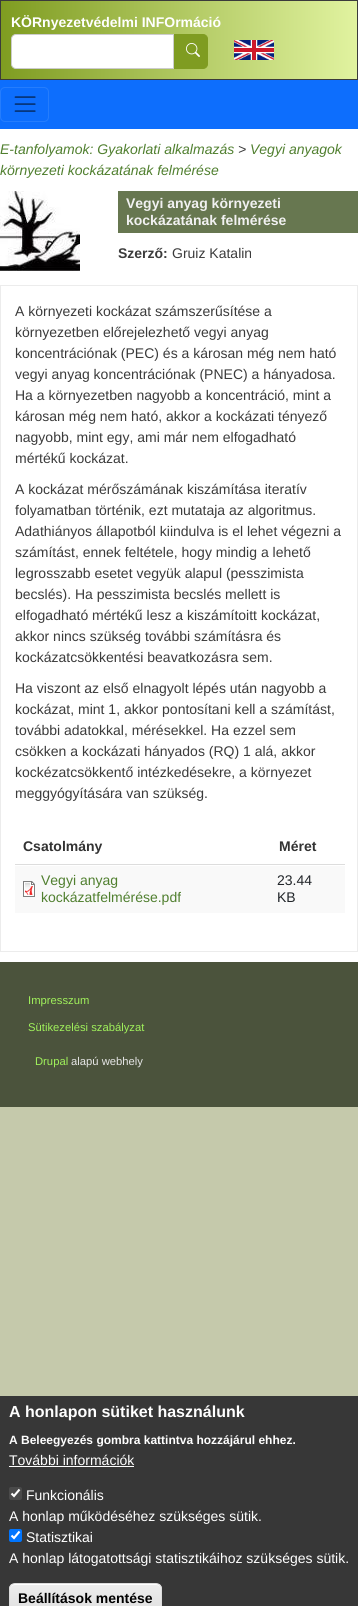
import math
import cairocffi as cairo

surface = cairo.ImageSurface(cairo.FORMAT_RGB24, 358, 1606)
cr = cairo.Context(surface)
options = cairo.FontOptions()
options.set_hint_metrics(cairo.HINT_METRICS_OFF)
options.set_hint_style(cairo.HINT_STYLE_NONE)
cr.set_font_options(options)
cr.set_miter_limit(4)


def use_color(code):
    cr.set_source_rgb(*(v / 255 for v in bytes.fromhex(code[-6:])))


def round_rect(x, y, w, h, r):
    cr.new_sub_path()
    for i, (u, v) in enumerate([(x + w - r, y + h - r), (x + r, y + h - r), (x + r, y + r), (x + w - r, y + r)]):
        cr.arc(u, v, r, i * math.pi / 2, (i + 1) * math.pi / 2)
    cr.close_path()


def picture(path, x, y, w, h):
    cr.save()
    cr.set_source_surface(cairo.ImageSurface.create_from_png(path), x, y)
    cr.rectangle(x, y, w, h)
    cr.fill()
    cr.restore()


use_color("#c5c9ab")
cr.paint()
use_color("#ffffff")
cr.rectangle(0, 129, 358, 833)
cr.fill()
gradient = cairo.LinearGradient(1, 40, 357, 40)
gradient.add_color_stop_rgba(0, 0.498, 0.612, 0.129, 1)
gradient.add_color_stop_rgba(1, 0.882, 0.953, 0.627, 1)
cr.set_source(gradient)
cr.rectangle(1, 1, 356, 78)
cr.fill()
cr.rectangle(0.5, 0.5, 357, 79)
use_color("#3b3b3b")
cr.set_line_width(1)
cr.stroke()
cr.select_font_face("Liberation Sans", cairo.FONT_SLANT_NORMAL, cairo.FONT_WEIGHT_BOLD)
cr.set_font_size(14)
use_color("#ffffff")
cr.move_to(11, 27)
cr.show_text("KÖRnyezetvédelmi INFOrmáció")
cr.new_path()
cr.move_to(16, 34.5)
cr.line_to(173.5, 34.5)
cr.line_to(173.5, 68.5)
cr.line_to(16, 68.5)
cr.curve_to(13.5, 68.5, 11.5, 66.5, 11.5, 64)
cr.line_to(11.5, 39)
cr.curve_to(11.5, 36.5, 13.5, 34.5, 16, 34.5)
cr.close_path()
cr.fill_preserve()
use_color("#cccccc")
cr.stroke()
use_color("#7f9c21")
cr.new_path()
cr.move_to(174.5, 34.5)
cr.line_to(203, 34.5)
cr.curve_to(205.5, 34.5, 207.5, 36.5, 207.5, 39)
cr.line_to(207.5, 64)
cr.curve_to(207.5, 66.5, 205.5, 68.5, 203, 68.5)
cr.line_to(174.5, 68.5)
cr.close_path()
cr.fill_preserve()
cr.stroke()
picture("img1.png", 186, 43, 14, 14)
picture("img2.png", 234, 40, 40, 20)
use_color("#0d6efd")
cr.rectangle(0, 80, 358, 49)
cr.fill()
round_rect(0.5, 87.5, 48, 34, 4.5)
use_color("#257dfd")
cr.stroke()
picture("img3.png", 14, 96, 22, 16)
cr.select_font_face("Liberation Sans", cairo.FONT_SLANT_ITALIC)
use_color("#507f2f")
cr.move_to(0, 154)
cr.show_text("E-tanfolyamok: Gyakorlati alkalmazás")
use_color("#3b3b3b")
cr.move_to(238, 154)
cr.show_text(">")
use_color("#507f2f")
cr.move_to(250, 154)
cr.show_text("Vegyi anyagok")
cr.move_to(0, 175)
cr.show_text("környezeti kockázatának felmérése")
picture("img4.png", 0, 191, 80, 80)
use_color("#677750")
cr.rectangle(118, 191, 240, 42)
cr.fill()
cr.select_font_face("Liberation Sans", cairo.FONT_SLANT_NORMAL, cairo.FONT_WEIGHT_BOLD)
use_color("#f1f1f1")
cr.move_to(126, 208)
cr.show_text("Vegyi anyag környezeti")
cr.move_to(126, 225)
cr.show_text("kockázatának felmérése")
use_color("#3b3b3b")
cr.move_to(118, 258)
cr.show_text("Szerző:")
cr.select_font_face("Liberation Sans")
cr.move_to(172, 258)
cr.show_text("Gruiz Katalin")
cr.rectangle(0.5, 285.5, 357, 666)
use_color("#ececec")
cr.stroke()
use_color("#3b3b3b")
cr.move_to(15, 316)
cr.show_text("A környezeti kockázat számszerűsítése a")
cr.move_to(15, 337)
cr.show_text("környezetben előrejelezhető vegyi anyag")
cr.move_to(15, 358)
cr.show_text("koncentrációnak (PEC) és a károsan még nem ható")
cr.move_to(15, 379)
cr.show_text("vegyi anyag koncentrációnak (PNEC) a hányadosa.")
cr.move_to(15, 400)
cr.show_text("Ha a környezetben nagyobb a koncentráció, mint a")
cr.move_to(15, 421)
cr.show_text("károsan még nem ható, akkor a kockázati tényező")
cr.move_to(15, 442)
cr.show_text("nagyobb, mint egy, ami már nem elfogadható")
cr.move_to(15, 463)
cr.show_text("mértékű kockázat.")
cr.move_to(15, 494)
cr.show_text("A kockázat mérőszámának kiszámítása iteratív")
cr.move_to(15, 515)
cr.show_text("folyamatban történik, ezt mutataja az algoritmus.")
cr.move_to(15, 536)
cr.show_text("Adathiányos állapotból kiindulva is el lehet végezni a")
cr.move_to(15, 557)
cr.show_text("számítást, ennek feltétele, hogy mindig a lehető")
cr.move_to(15, 578)
cr.show_text("legrosszabb esetet vegyük alapul (pesszimista")
cr.move_to(15, 599)
cr.show_text("becslés). Ha pesszimista becslés mellett is")
cr.move_to(15, 620)
cr.show_text("elfogadható mértékű lesz a kiszámítoitt kockázat,")
cr.move_to(15, 641)
cr.show_text("akkor nincs szükség további számításra és")
cr.move_to(15, 662)
cr.show_text("kockázatcsökkentési beavatkozásra sem.")
cr.move_to(15, 693)
cr.show_text("Ha viszont az első elnagyolt lépés után nagyobb a")
cr.move_to(15, 714)
cr.show_text("kockázat, mint 1, akkor pontosítani kell a számítást,")
cr.move_to(15, 735)
cr.show_text("további adatokkal, mérésekkel. Ha ezzel sem")
cr.move_to(15, 756)
cr.show_text("csökken a kockázati hányados (RQ) 1 alá, akkor")
cr.move_to(15, 777)
cr.show_text("kockézatcsökkentő intézkedésekre, a környezet")
cr.move_to(15, 798)
cr.show_text("meggyógyítására van szükség.")
cr.select_font_face("Liberation Sans", cairo.FONT_SLANT_NORMAL, cairo.FONT_WEIGHT_BOLD)
use_color("#333333")
cr.move_to(23, 851)
cr.show_text("Csatolmány")
cr.move_to(279, 851)
cr.show_text("Méret")
use_color("#f9f9f9")
cr.rectangle(15, 866, 330, 47)
cr.fill()
picture("img5.png", 23, 881, 12, 16)
cr.select_font_face("Liberation Sans")
use_color("#507f2f")
cr.move_to(41, 885)
cr.show_text("Vegyi anyag")
cr.move_to(41, 902)
cr.show_text("kockázatfelmérése.pdf")
use_color("#dddddd")
cr.rectangle(15, 864, 330, 1)
cr.fill()
use_color("#212529")
cr.move_to(277, 885)
cr.show_text("23.44")
cr.move_to(277, 902)
cr.show_text("KB")
use_color("#4b533c")
cr.rectangle(0, 962, 358, 145)
cr.fill()
cr.set_font_size(11.25)
use_color("#a0f15b")
cr.move_to(28, 1004)
cr.show_text("Impresszum")
cr.move_to(28, 1031)
cr.show_text("Sütikezelési szabályzat")
cr.move_to(35, 1065)
cr.show_text("Drupal")
use_color("#e6e6e6")
cr.move_to(71, 1065)
cr.show_text("alapú webhely")
use_color("#373737")
cr.rectangle(0, 1396, 358, 210)
cr.fill()
cr.select_font_face("Liberation Sans", cairo.FONT_SLANT_NORMAL, cairo.FONT_WEIGHT_BOLD)
cr.set_font_size(16)
use_color("#ffffff")
cr.move_to(9, 1417)
cr.show_text("A honlapon sütiket használunk")
cr.set_font_size(12)
cr.move_to(9, 1444)
cr.show_text("A Beleegyezés gombra kattintva hozzájárul ehhez.")
cr.select_font_face("Liberation Sans")
cr.set_font_size(14)
cr.move_to(9, 1465)
cr.show_text("További információk")
cr.rectangle(9, 1466, 125, 1)
cr.fill()
use_color("#4a4a4a")
round_rect(9, 1487, 13, 13, 2)
cr.fill()
cr.new_path()
cr.move_to(11.5, 1493.5)
cr.line_to(14, 1496)
cr.line_to(19.5, 1489.5)
use_color("#ffffff")
cr.set_line_width(2.1)
cr.stroke()
cr.move_to(26, 1500)
cr.show_text("Funkcionális")
cr.move_to(9, 1521)
cr.show_text("A honlap működéséhez szükséges sütik.")
use_color("#0075ff")
round_rect(9, 1529, 13, 13, 2)
cr.fill()
cr.new_path()
cr.move_to(11.5, 1535.5)
cr.line_to(14, 1538)
cr.line_to(19.5, 1531.5)
use_color("#ffffff")
cr.stroke()
cr.move_to(26, 1542)
cr.show_text("Statisztikai")
cr.move_to(9, 1563)
cr.show_text("A honlap látogatottsági statisztikáihoz szükséges sütik.")
cr.save()
round_rect(9, 1583, 153, 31, 6)
cr.clip()
gradient = cairo.LinearGradient(86, 1584, 86, 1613)
gradient.add_color_stop_rgba(0.05, 0.929, 0.929, 0.929, 1)
gradient.add_color_stop_rgba(1, 0.875, 0.875, 0.875, 1)
cr.set_source(gradient)
cr.rectangle(9, 1584, 153, 22)
cr.fill()
cr.restore()
cr.new_path()
cr.move_to(15, 1585)
cr.line_to(156, 1585)
cr.curve_to(159, 1585, 161, 1587, 161, 1590)
cr.line_to(161, 1589)
cr.curve_to(161, 1586, 159, 1584, 156, 1584)
cr.line_to(15, 1584)
cr.curve_to(12, 1584, 10, 1586, 10, 1589)
cr.line_to(10, 1590)
cr.curve_to(10, 1587, 12, 1585, 15, 1585)
cr.close_path()
cr.fill()
round_rect(9.5, 1583.5, 152, 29, 5.5)
use_color("#dcdcdc")
cr.set_line_width(1)
cr.stroke()
cr.select_font_face("Liberation Sans", cairo.FONT_SLANT_NORMAL, cairo.FONT_WEIGHT_BOLD)
use_color("#000000")
cr.move_to(18, 1603)
cr.show_text("Beállítások mentése")
surface.write_to_png("result.png")
